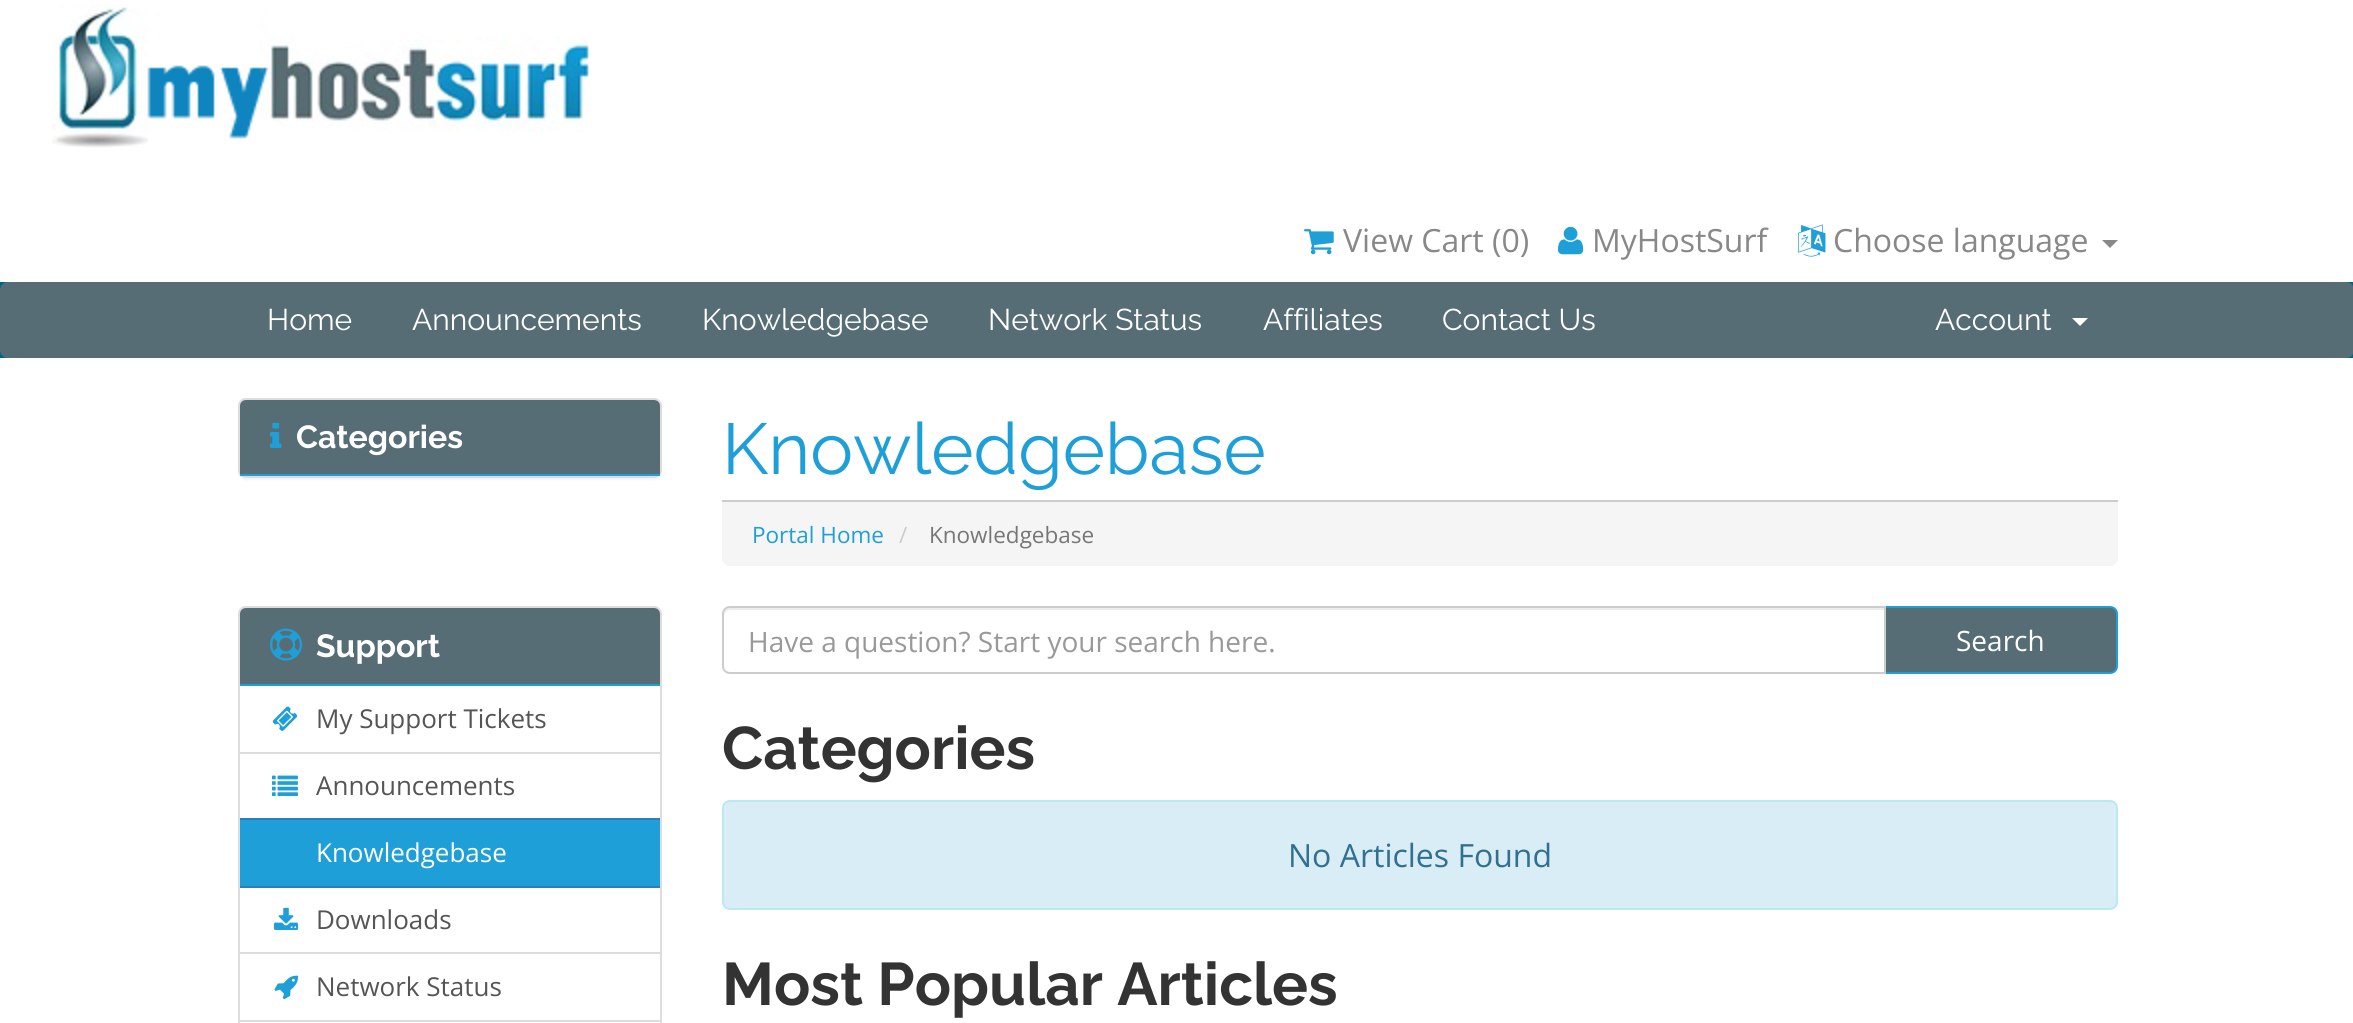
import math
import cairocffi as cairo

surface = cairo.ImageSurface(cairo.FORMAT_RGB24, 2353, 1023)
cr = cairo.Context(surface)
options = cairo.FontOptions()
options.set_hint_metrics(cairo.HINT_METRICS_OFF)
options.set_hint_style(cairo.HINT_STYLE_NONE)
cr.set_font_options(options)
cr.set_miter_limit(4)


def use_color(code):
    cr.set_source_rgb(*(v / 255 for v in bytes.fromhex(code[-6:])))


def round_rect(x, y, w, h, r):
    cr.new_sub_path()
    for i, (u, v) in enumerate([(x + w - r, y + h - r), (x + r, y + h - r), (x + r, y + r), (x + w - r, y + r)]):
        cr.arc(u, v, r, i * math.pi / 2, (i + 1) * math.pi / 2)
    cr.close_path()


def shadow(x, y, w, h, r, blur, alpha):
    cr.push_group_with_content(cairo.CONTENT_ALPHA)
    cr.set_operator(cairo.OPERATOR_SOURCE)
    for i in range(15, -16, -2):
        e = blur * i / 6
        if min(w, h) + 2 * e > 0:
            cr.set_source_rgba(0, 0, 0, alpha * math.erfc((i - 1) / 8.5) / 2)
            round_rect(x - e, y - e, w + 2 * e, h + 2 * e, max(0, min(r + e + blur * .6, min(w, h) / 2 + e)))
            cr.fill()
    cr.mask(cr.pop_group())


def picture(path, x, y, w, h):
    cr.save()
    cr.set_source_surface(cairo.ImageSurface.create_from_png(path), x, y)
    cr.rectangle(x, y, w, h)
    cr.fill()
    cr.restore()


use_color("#ffffff")
cr.paint()
picture("img1.png", 52, 4, 540, 144)
picture("img2.png", 1304, 229, 30, 26)
cr.select_font_face("Open Sans")
cr.set_font_size(32)
use_color("#888888")
cr.move_to(1343, 252)
cr.show_text("View Cart (0)")
picture("img3.png", 1558, 226, 26, 29)
cr.move_to(1592, 252)
cr.show_text("MyHostSurf")
picture("img4.png", 1798, 224, 28, 33)
cr.move_to(1833, 252)
cr.show_text("Choose language")
cr.new_path()
cr.move_to(2102, 240)
cr.line_to(2118, 240)
cr.line_to(2110, 248)
cr.close_path()
cr.fill()
use_color("#006687")
cr.rectangle(0, 282, 2353, 76)
cr.fill()
use_color("#566d75")
round_rect(0, 282, 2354, 76, 8)
cr.fill()
cr.select_font_face("Raleway")
cr.set_font_size(30)
use_color("#ffffff")
cr.move_to(267, 330)
cr.show_text("Home")
cr.move_to(412, 330)
cr.show_text("Announcements")
cr.move_to(702, 330)
cr.show_text("Knowledgebase")
cr.move_to(988, 330)
cr.show_text("Network Status")
cr.move_to(1263, 330)
cr.show_text("Affiliates")
cr.move_to(1442, 330)
cr.show_text("Contact Us")
cr.move_to(1935, 330)
cr.show_text("Account")
cr.new_path()
cr.move_to(2072, 318)
cr.line_to(2088, 318)
cr.line_to(2080, 326)
cr.close_path()
cr.fill()
use_color("#000000")
shadow(238, 400, 424, 80, 8, 1, 0.05)
round_rect(239, 399, 422, 78, 7)
use_color("#dddddd")
cr.stroke()
use_color("#566d75")
cr.new_path()
cr.move_to(246, 400)
cr.line_to(654, 400)
cr.curve_to(657.5, 400, 660, 402.5, 660, 406)
cr.line_to(660, 476)
cr.line_to(240, 476)
cr.line_to(240, 406)
cr.curve_to(240, 402.5, 242.5, 400, 246, 400)
cr.close_path()
cr.fill()
use_color("#1e9fd8")
cr.rectangle(240, 474, 420, 2)
cr.fill()
picture("img5.png", 270, 422, 12, 26)
cr.select_font_face("Raleway", cairo.FONT_SLANT_NORMAL, cairo.FONT_WEIGHT_BOLD)
cr.set_font_size(32)
use_color("#ffffff")
cr.move_to(296, 448)
cr.show_text("Categories")
use_color("#cccccc")
cr.rectangle(722, 500, 1396, 2)
cr.fill()
cr.select_font_face("Raleway")
cr.set_font_size(72)
use_color("#1e9fd8")
cr.move_to(722, 474)
cr.show_text("Knowledgebase")
use_color("#f5f5f5")
cr.new_path()
cr.move_to(722, 502)
cr.line_to(2118, 502)
cr.line_to(2118, 558)
cr.curve_to(2118, 562.5, 2114.5, 566, 2110, 566)
cr.line_to(730, 566)
cr.curve_to(725.5, 566, 722, 562.5, 722, 558)
cr.close_path()
cr.fill()
cr.select_font_face("Open Sans")
cr.set_font_size(22.5)
use_color("#1e9fd8")
cr.move_to(752, 543)
cr.show_text("Portal Home")
use_color("#cccccc")
cr.move_to(899, 543)
cr.show_text("/")
use_color("#777777")
cr.move_to(929, 543)
cr.show_text("Knowledgebase")
round_rect(239, 607, 422, 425, 7)
use_color("#dddddd")
cr.stroke()
use_color("#566d75")
cr.new_path()
cr.move_to(246, 608)
cr.line_to(654, 608)
cr.curve_to(657.5, 608, 660, 610.5, 660, 614)
cr.line_to(660, 686)
cr.line_to(240, 686)
cr.line_to(240, 614)
cr.curve_to(240, 610.5, 242.5, 608, 246, 608)
cr.close_path()
cr.fill()
use_color("#1e9fd8")
cr.rectangle(240, 684, 420, 2)
cr.fill()
picture("img6.png", 270, 628, 32, 33)
cr.select_font_face("Raleway", cairo.FONT_SLANT_NORMAL, cairo.FONT_WEIGHT_BOLD)
cr.set_font_size(32)
use_color("#ffffff")
cr.move_to(316, 657)
cr.show_text("Support")
use_color("#dddddd")
cr.rectangle(240, 752, 420, 2)
cr.fill()
picture("img7.png", 272, 706, 26, 25)
cr.select_font_face("Open Sans")
cr.set_font_size(26)
use_color("#555555")
cr.move_to(316, 728)
cr.show_text("My Support Tickets")
picture("img8.png", 272, 775, 26, 21)
cr.move_to(316, 795)
cr.show_text("Announcements")
use_color("#1e9fd8")
cr.rectangle(240, 820, 420, 66)
cr.fill()
use_color("#337ab7")
cr.rectangle(240, 818, 420, 2)
cr.fill()
cr.rectangle(240, 886, 420, 2)
cr.fill()
use_color("#ffffff")
cr.move_to(316, 862)
cr.show_text("Knowledgebase")
use_color("#dddddd")
cr.rectangle(240, 952, 420, 2)
cr.fill()
picture("img9.png", 274, 907, 25, 23)
use_color("#555555")
cr.move_to(316, 929)
cr.show_text("Downloads")
picture("img10.png", 274, 975, 25, 25)
cr.move_to(316, 996)
cr.show_text("Network Status")
use_color("#dddddd")
cr.rectangle(240, 1020, 420, 2)
cr.fill()
use_color("#566d75")
cr.new_path()
cr.move_to(1885, 607)
cr.line_to(2110, 607)
cr.curve_to(2114, 607, 2117, 610, 2117, 614)
cr.line_to(2117, 666)
cr.curve_to(2117, 670, 2114, 673, 2110, 673)
cr.line_to(1885, 673)
cr.close_path()
cr.fill_preserve()
use_color("#1e9fd8")
cr.stroke()
use_color("#ffffff")
cr.new_path()
cr.move_to(730, 606)
cr.line_to(1886, 606)
cr.line_to(1886, 674)
cr.line_to(730, 674)
cr.curve_to(725.5, 674, 722, 670.5, 722, 666)
cr.line_to(722, 614)
cr.curve_to(722, 609.5, 725.5, 606, 730, 606)
cr.close_path()
cr.fill()
use_color("#ececec")
cr.new_path()
cr.move_to(730, 610)
cr.line_to(1884, 610)
cr.line_to(1884, 608)
cr.line_to(730, 608)
cr.curve_to(727, 608, 724, 611, 724, 614)
cr.line_to(724, 616)
cr.curve_to(724, 613, 727, 610, 730, 610)
cr.close_path()
cr.fill()
cr.new_path()
cr.move_to(730, 607)
cr.line_to(1885, 607)
cr.line_to(1885, 673)
cr.line_to(730, 673)
cr.curve_to(726, 673, 723, 670, 723, 666)
cr.line_to(723, 614)
cr.curve_to(723, 610, 726, 607, 730, 607)
cr.close_path()
use_color("#cccccc")
cr.stroke()
cr.set_font_size(28)
use_color("#999999")
cr.move_to(748, 652)
cr.show_text("Have a question? Start your search here.")
use_color("#ffffff")
cr.move_to(1956, 651)
cr.show_text("Search")
cr.select_font_face("Raleway", cairo.FONT_SLANT_NORMAL, cairo.FONT_WEIGHT_BOLD)
cr.set_font_size(60)
use_color("#333333")
cr.move_to(722, 769)
cr.show_text("Categories")
use_color("#d9edf7")
round_rect(723, 801, 1394, 108, 7)
cr.fill_preserve()
use_color("#bce8f1")
cr.stroke()
cr.select_font_face("Open Sans")
cr.set_font_size(32)
use_color("#31708f")
cr.move_to(1288, 867)
cr.show_text("No Articles Found")
cr.select_font_face("Raleway", cairo.FONT_SLANT_NORMAL, cairo.FONT_WEIGHT_BOLD)
cr.set_font_size(60)
use_color("#333333")
cr.move_to(722, 1005)
cr.show_text("Most Popular Articles")
surface.write_to_png("result.png")
